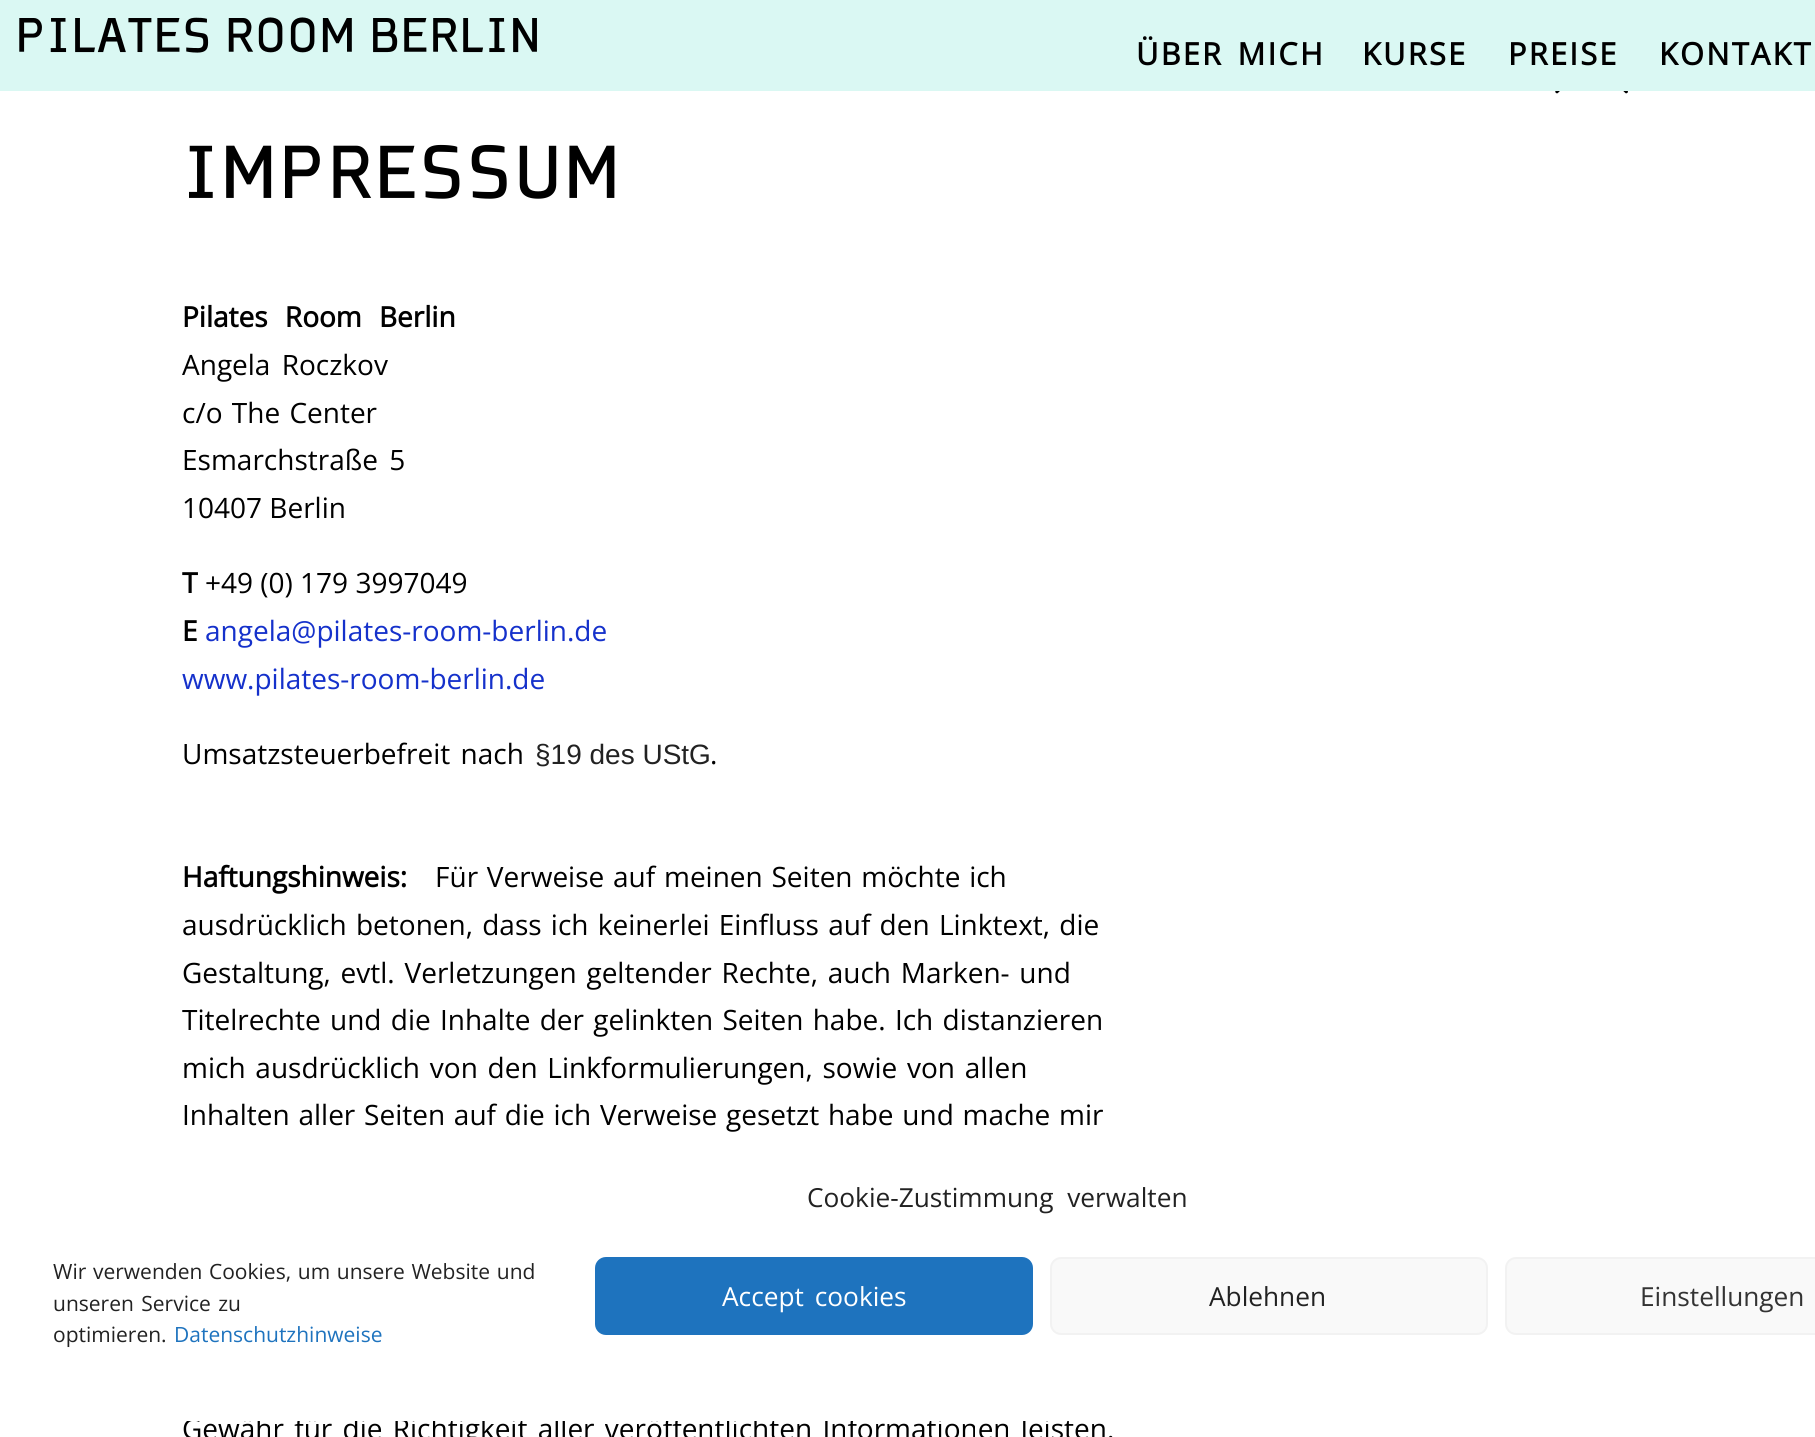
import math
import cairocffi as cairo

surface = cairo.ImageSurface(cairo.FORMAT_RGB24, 1815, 1437)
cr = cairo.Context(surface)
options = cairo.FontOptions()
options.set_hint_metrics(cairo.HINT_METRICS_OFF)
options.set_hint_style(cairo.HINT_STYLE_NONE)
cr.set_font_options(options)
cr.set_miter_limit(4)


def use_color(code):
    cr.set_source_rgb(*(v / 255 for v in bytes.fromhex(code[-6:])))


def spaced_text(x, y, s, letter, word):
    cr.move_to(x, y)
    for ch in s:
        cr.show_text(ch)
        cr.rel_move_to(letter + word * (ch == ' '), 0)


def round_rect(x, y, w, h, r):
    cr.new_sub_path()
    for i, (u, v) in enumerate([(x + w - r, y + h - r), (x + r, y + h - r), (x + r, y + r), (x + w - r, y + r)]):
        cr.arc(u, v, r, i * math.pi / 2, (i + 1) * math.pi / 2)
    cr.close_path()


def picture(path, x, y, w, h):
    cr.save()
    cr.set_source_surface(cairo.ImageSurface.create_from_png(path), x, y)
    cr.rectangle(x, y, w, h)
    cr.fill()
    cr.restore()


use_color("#ffffff")
cr.paint()
use_color("#daf8f3")
cr.rectangle(0, 0, 1815, 91)
cr.fill()
picture("img1.png", 19, 17, 518, 36)
cr.select_font_face("Open Sans", cairo.FONT_SLANT_NORMAL, cairo.FONT_WEIGHT_BOLD)
cr.set_font_size(30.75)
use_color("#000000")
spaced_text(1136, 65, "ÜBER MICH", 2.25, 4)
spaced_text(1362, 65, "KURSE", 2.25, 0)
spaced_text(1508, 65, "PREISE", 2.25, 0)
spaced_text(1659, 65, "KONTAKT", 2.25, 0)
picture("img2.png", 1555, 91, 73, 3)
cr.select_font_face("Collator")
cr.set_font_size(70)
cr.move_to(182, 198)
cr.show_text("IMPRESSUM")
cr.select_font_face("Open Sans", cairo.FONT_SLANT_NORMAL, cairo.FONT_WEIGHT_BOLD)
cr.set_font_size(28)
spaced_text(182, 327, "Pilates Room Berlin", 0, 10)
cr.select_font_face("Open Sans")
spaced_text(182, 375, "Angela Roczkov", 0, 4)
spaced_text(182, 423, "c/o The Center", 0, 2)
spaced_text(182, 470, "Esmarchstraße 5", 0, 4)
cr.move_to(182, 518)
cr.show_text("10407 Berlin")
cr.select_font_face("Open Sans", cairo.FONT_SLANT_NORMAL, cairo.FONT_WEIGHT_BOLD)
cr.move_to(182, 593)
cr.show_text("T")
cr.select_font_face("Open Sans")
cr.move_to(205, 593)
cr.show_text("+49 (0) 179 3997049")
cr.select_font_face("Open Sans", cairo.FONT_SLANT_NORMAL, cairo.FONT_WEIGHT_BOLD)
cr.move_to(182, 641)
cr.show_text("E")
cr.select_font_face("Open Sans")
use_color("#1531cb")
cr.move_to(205, 641)
cr.show_text("angela@pilates-room-berlin.de")
cr.move_to(182, 689)
cr.show_text("www.pilates-room-berlin.de")
use_color("#000000")
spaced_text(182, 764, "Umsatzsteuerbefreit nach", 0, 3)
cr.select_font_face("Liberation Sans")
use_color("#222222")
cr.move_to(535, 764)
cr.show_text("§19 des UStG")
cr.select_font_face("Open Sans")
use_color("#000000")
cr.move_to(710, 764)
cr.show_text(".")
cr.select_font_face("Open Sans", cairo.FONT_SLANT_NORMAL, cairo.FONT_WEIGHT_BOLD)
cr.move_to(182, 887)
cr.show_text("Haftungshinweis:")
cr.select_font_face("Open Sans")
spaced_text(435, 887, "Für Verweise auf meinen Seiten möchte ich", 0, 1.5)
spaced_text(182, 935, "ausdrücklich betonen, dass ich keinerlei Einfluss auf den Linktext, die", 0, 2)
spaced_text(182, 983, "Gestaltung, evtl. Verletzungen geltender Rechte, auch Marken- und", 0, 2.5)
spaced_text(182, 1030, "Titelrechte und die Inhalte der gelinkten Seiten habe. Ich distanzieren", 0, 2)
spaced_text(182, 1078, "mich ausdrücklich von den Linkformulierungen, sowie von allen", 0, 2.5)
spaced_text(182, 1125, "Inhalten aller Seiten auf die ich Verweise gesetzt habe und mache mir", 0, 1.5)
spaced_text(182, 1439, "Gewähr für die Richtigkeit aller veröffentlichten Informationen leisten.", 0, 3)
use_color("#ffffff")
round_rect(18, 1148, 1781, 273, 21)
cr.fill()
cr.set_font_size(26.25)
use_color("#222222")
spaced_text(807, 1207, "Cookie-Zustimmung verwalten", 0, 7)
cr.set_font_size(21)
spaced_text(53, 1279, "Wir verwenden Cookies, um unsere Website und", 0, 1.25)
spaced_text(53, 1311, "unseren Service zu", 0, 2)
cr.move_to(53, 1342)
cr.show_text("optimieren.")
use_color("#1e73be")
cr.move_to(174, 1342)
cr.show_text("Datenschutzhinweise")
round_rect(596, 1258, 436, 76, 10)
cr.fill_preserve()
cr.stroke()
cr.set_font_size(26.25)
use_color("#ffffff")
spaced_text(722, 1306, "Accept cookies", 0, 4)
use_color("#f9f9f9")
round_rect(1051, 1258, 436, 76, 10)
cr.fill_preserve()
use_color("#f2f2f2")
cr.stroke()
use_color("#222222")
cr.move_to(1209, 1306)
cr.show_text("Ablehnen")
use_color("#f9f9f9")
round_rect(1506, 1258, 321, 76, 10)
cr.fill_preserve()
use_color("#f2f2f2")
cr.stroke()
use_color("#333333")
cr.move_to(1640, 1306)
cr.show_text("Einstellungen")
surface.write_to_png("result.png")
